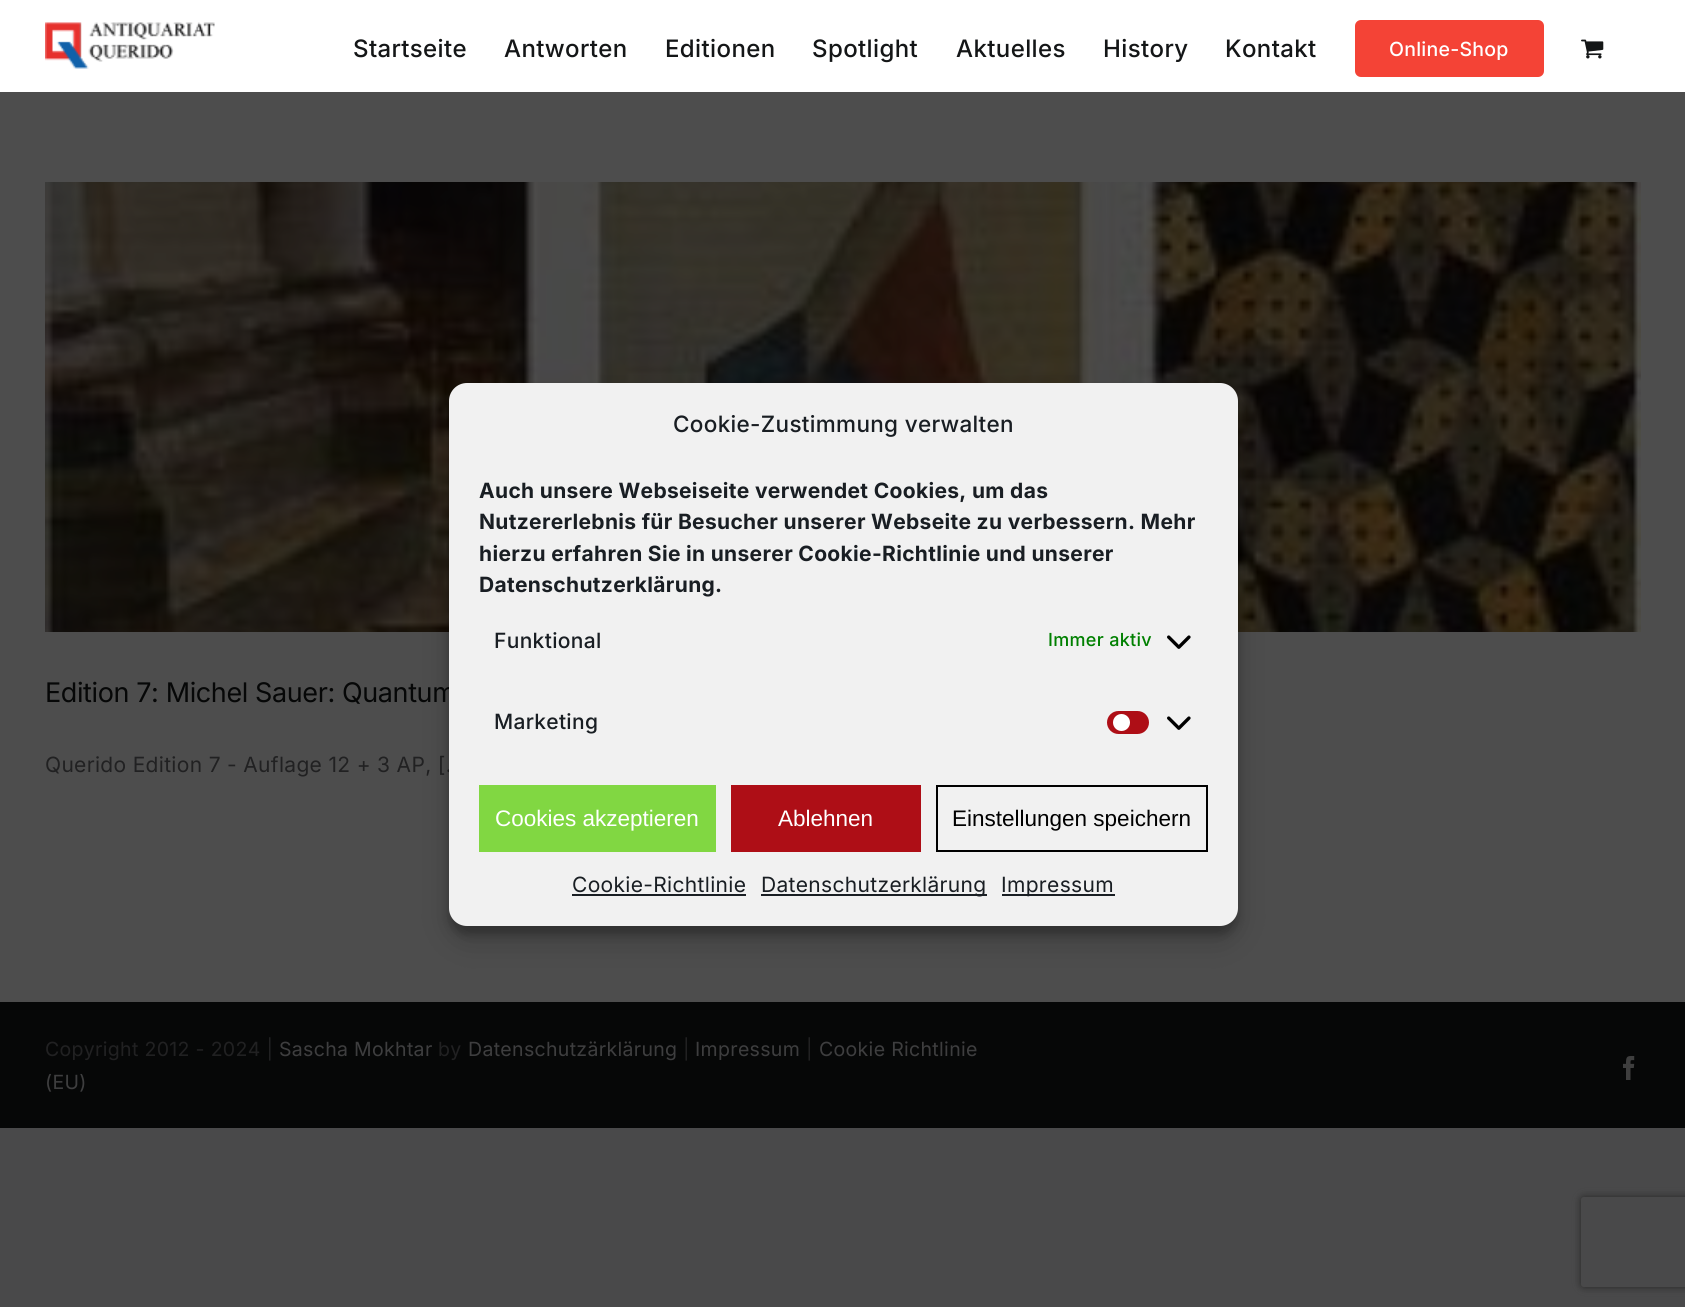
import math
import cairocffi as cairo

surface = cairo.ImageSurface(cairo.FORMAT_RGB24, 1685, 1307)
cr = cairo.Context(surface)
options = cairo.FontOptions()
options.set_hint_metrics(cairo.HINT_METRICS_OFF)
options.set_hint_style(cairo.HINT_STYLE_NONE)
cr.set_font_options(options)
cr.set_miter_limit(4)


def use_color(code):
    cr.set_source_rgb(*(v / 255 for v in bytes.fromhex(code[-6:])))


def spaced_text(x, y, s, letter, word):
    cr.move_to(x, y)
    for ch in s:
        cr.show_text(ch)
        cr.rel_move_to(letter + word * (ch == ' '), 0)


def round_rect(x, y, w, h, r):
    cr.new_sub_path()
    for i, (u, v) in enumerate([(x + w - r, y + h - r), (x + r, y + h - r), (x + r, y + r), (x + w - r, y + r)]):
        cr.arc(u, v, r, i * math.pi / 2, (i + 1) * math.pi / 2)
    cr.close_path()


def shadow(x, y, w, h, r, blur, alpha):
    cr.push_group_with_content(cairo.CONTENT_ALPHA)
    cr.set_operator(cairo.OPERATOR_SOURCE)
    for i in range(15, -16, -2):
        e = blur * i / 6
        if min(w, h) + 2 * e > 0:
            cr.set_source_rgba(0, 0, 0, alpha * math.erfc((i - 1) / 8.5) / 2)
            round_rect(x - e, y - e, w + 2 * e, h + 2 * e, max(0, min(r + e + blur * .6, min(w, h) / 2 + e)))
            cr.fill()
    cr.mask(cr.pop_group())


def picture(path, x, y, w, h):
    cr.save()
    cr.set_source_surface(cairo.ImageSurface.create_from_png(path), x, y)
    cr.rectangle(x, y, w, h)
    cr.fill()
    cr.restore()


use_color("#49494a")
cr.paint()
use_color("#4d4d4d")
cr.rectangle(0, 92, 1685, 910)
cr.fill()
use_color("#ffffff")
cr.rectangle(0, 0, 1685, 92)
cr.fill()
picture("img1.png", 45, 22, 170, 47)
cr.select_font_face("Inter Medium")
cr.set_font_size(24)
use_color("#141617")
spaced_text(353, 57, "Startseite", 0.4, 0)
spaced_text(504, 57, "Antworten", 0.4, 0)
spaced_text(665, 57, "Editionen", 0.4, 0)
spaced_text(812, 57, "Spotlight", 0.4, 0)
spaced_text(956, 57, "Aktuelles", 0.4, 0)
spaced_text(1103, 57, "History", 0.4, 0)
spaced_text(1225, 57, "Kontakt", 0.4, 0)
use_color("#f44336")
round_rect(1355, 20, 189, 57, 6)
cr.fill()
cr.set_font_size(19.5)
use_color("#ffffff")
spaced_text(1389, 56, "Online-Shop", 0.25, 0)
picture("img2.png", 1581, 39, 23, 20)
picture("img3.png", 45, 182, 1596, 450)
cr.select_font_face("Inter")
cr.set_font_size(27)
use_color("#060707")
spaced_text(45, 702, "Edition 7: Michel Sauer: Quantum", -0.4, 0)
cr.set_font_size(21)
use_color("#212122")
spaced_text(45, 772, "Querido Edition 7 - Auflage 12 + 3 AP, [.", 0.32, 0)
use_color("#060707")
cr.rectangle(0, 1002, 1685, 126)
cr.fill()
cr.set_font_size(19.5)
use_color("#212122")
spaced_text(45, 1056, "Copyright 2012 - 2024 |", 0.32, 0)
use_color("#3e3e3f")
spaced_text(279, 1056, "Sascha Mokhtar", 0.32, 0)
use_color("#212122")
spaced_text(438, 1056, "by", 0.32, 0)
use_color("#3e3e3f")
spaced_text(468, 1056, "Datenschutzärklärung", 0.32, 0)
use_color("#212122")
spaced_text(683, 1056, "|", 0.32, 0)
use_color("#3e3e3f")
spaced_text(695, 1056, "Impressum", 0.32, 0)
use_color("#212122")
spaced_text(806, 1056, "|", 0.32, 0)
use_color("#3e3e3f")
spaced_text(819, 1056, "Cookie Richtlinie", 0.32, 0)
spaced_text(45, 1089, "(EU)", 0.32, 0)
picture("img4.png", 1623, 1056, 12, 24)
use_color("#000000")
shadow(449, 392, 789, 543, 18, 4.5, 0.23)
shadow(449, 398, 789, 543, 18, 15, 0.19)
use_color("#f1f1f1")
round_rect(449, 383, 789, 543, 18)
cr.fill()
cr.select_font_face("Inter Medium")
cr.set_font_size(22.5)
use_color("#191e23")
spaced_text(673, 432, "Cookie-Zustimmung verwalten", 0.32, 0)
cr.select_font_face("Inter", cairo.FONT_SLANT_NORMAL, cairo.FONT_WEIGHT_BOLD)
cr.set_font_size(21)
spaced_text(479, 498, "Auch unsere Webseiseite verwendet Cookies, um das", 0.32, 0)
spaced_text(479, 529, "Nutzererlebnis für Besucher unserer Webseite zu verbessern. Mehr", 0.32, 0)
spaced_text(479, 561, "hierzu erfahren Sie in unserer Cookie-Richtlinie und unserer", 0.32, 0)
spaced_text(479, 592, "Datenschutzerklärung.", 0.32, 0)
cr.select_font_face("Inter Medium")
spaced_text(494, 648, "Funktional", 0.32, 0)
cr.set_font_size(18)
use_color("#008000")
spaced_text(1048, 646, "Immer aktiv", 0.32, 0)
picture("img5.png", 1167, 635, 24, 14)
cr.set_font_size(21)
use_color("#191e23")
spaced_text(494, 729, "Marketing", 0.32, 0)
use_color("#ae0e16")
round_rect(1107, 711, 42, 23, 11.5)
cr.fill()
use_color("#ffffff")
cr.arc(1121.5, 722.5, 8.5, 0, 2 * math.pi)
cr.fill()
picture("img5.png", 1167, 716, 24, 14)
use_color("#81d742")
cr.rectangle(479, 785, 237, 67)
cr.fill()
cr.select_font_face("Liberation Sans")
cr.set_font_size(22.5)
use_color("#ffffff")
cr.move_to(495, 826)
cr.show_text("Cookies akzeptieren")
use_color("#ae0e16")
cr.rectangle(731, 785, 190, 67)
cr.fill()
use_color("#ffffff")
cr.move_to(778, 826)
cr.show_text("Ablehnen")
cr.rectangle(937, 786, 270, 65)
use_color("#000000")
cr.stroke()
cr.move_to(952, 826)
cr.show_text("Einstellungen speichern")
cr.select_font_face("Inter")
cr.set_font_size(21)
use_color("#191e23")
spaced_text(572, 892, "Cookie-Richtlinie", 0.32, 0)
cr.rectangle(572, 894, 174, 2)
cr.fill()
cr.rectangle(761, 894, 226, 2)
cr.fill()
spaced_text(761, 892, "Datenschutzerklärung", 0.32, 0)
cr.rectangle(1002, 894, 113, 2)
cr.fill()
spaced_text(1001, 892, "Impressum", 0.32, 0)
cr.save()
cr.set_fill_rule(cairo.FILL_RULE_EVEN_ODD)
cr.new_path()
cr.move_to(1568, 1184)
cr.line_to(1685, 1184)
cr.line_to(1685, 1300)
cr.line_to(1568, 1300)
cr.close_path()
cr.move_to(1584, 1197)
cr.line_to(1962, 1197)
cr.curve_to(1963.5, 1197, 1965, 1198.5, 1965, 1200)
cr.line_to(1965, 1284)
cr.curve_to(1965, 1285.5, 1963.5, 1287, 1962, 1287)
cr.line_to(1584, 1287)
cr.curve_to(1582.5, 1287, 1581, 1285.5, 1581, 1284)
cr.line_to(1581, 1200)
cr.curve_to(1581, 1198.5, 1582.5, 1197, 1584, 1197)
cr.close_path()
cr.clip()
use_color("#262626")
shadow(1581, 1197, 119, 90, 3, 4, 1)
cr.restore()
surface.write_to_png("result.png")
